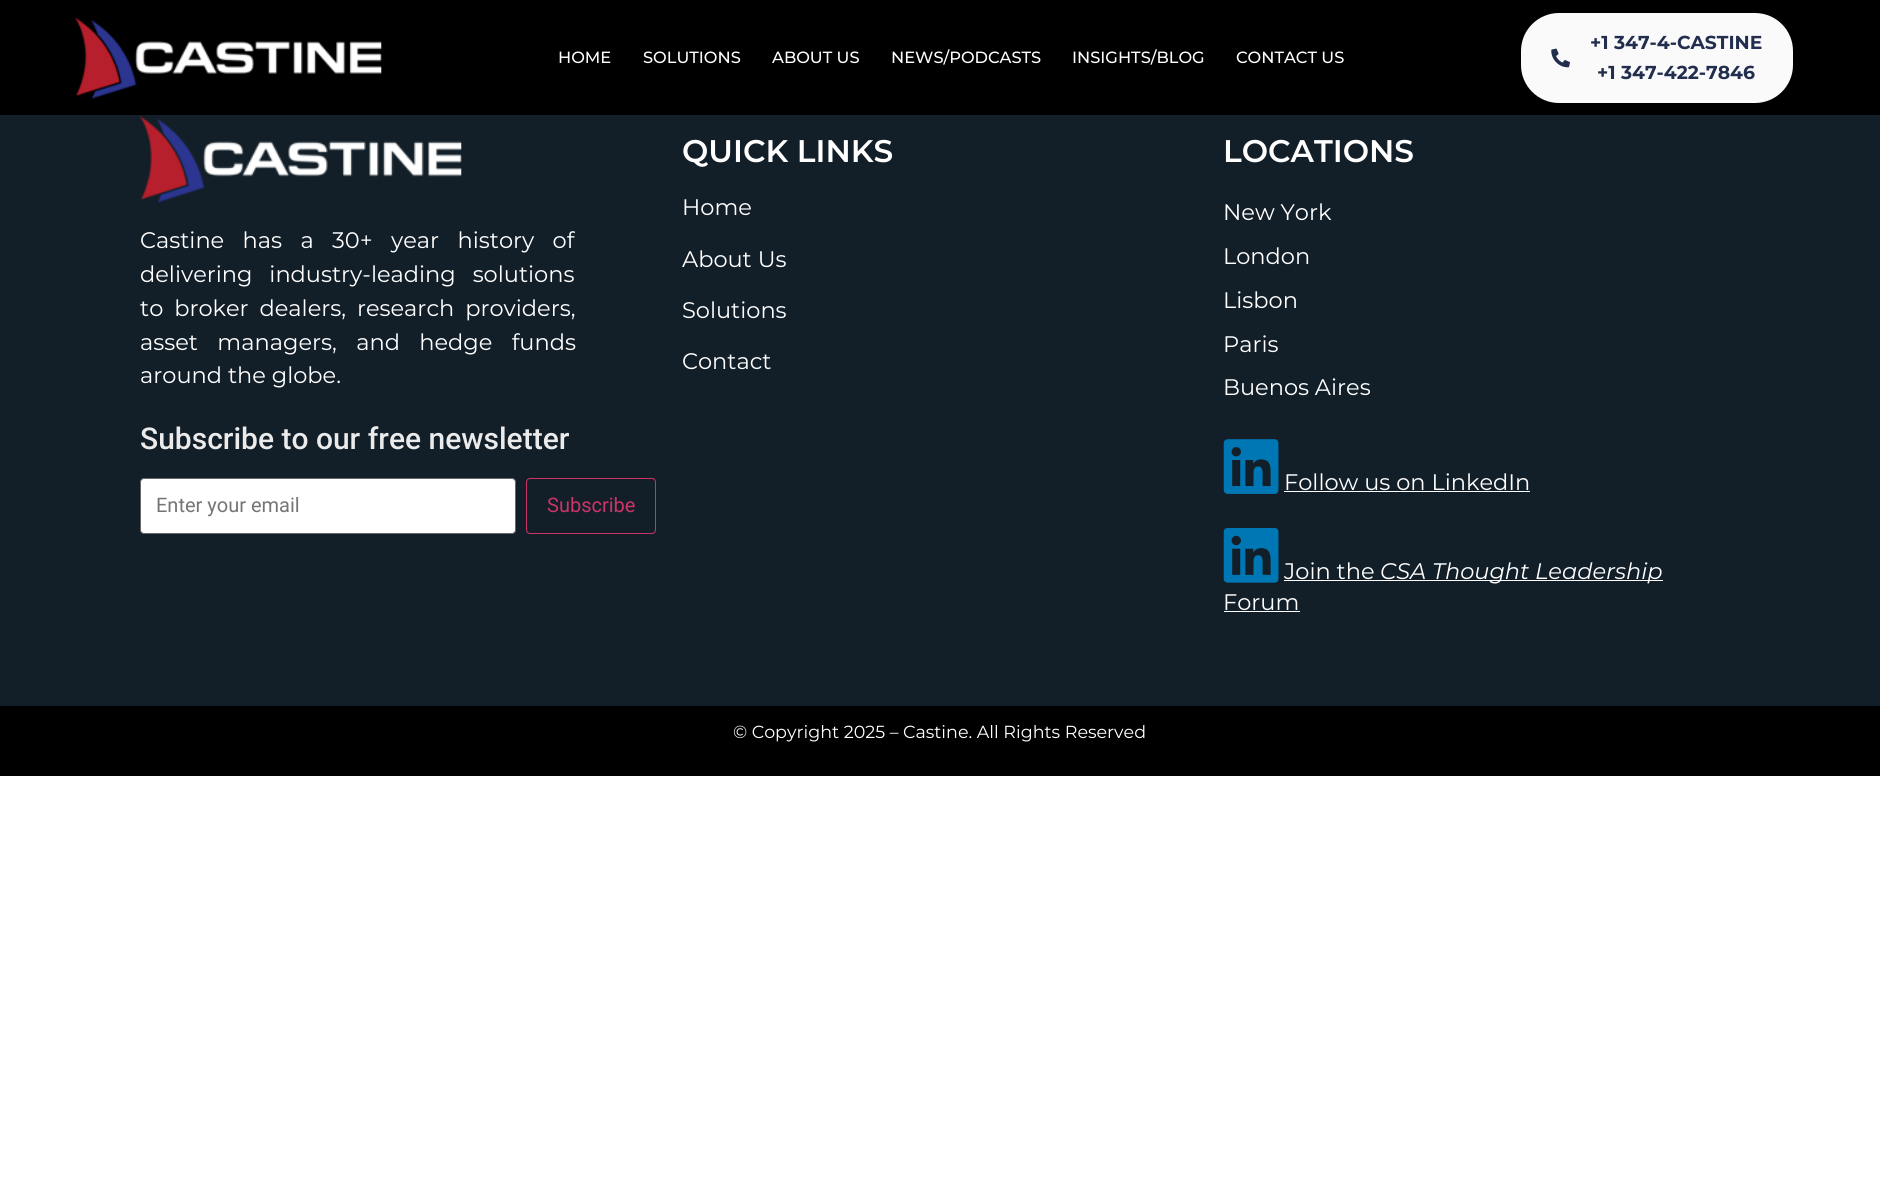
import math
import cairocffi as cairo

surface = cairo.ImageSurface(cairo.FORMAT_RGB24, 1880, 1191)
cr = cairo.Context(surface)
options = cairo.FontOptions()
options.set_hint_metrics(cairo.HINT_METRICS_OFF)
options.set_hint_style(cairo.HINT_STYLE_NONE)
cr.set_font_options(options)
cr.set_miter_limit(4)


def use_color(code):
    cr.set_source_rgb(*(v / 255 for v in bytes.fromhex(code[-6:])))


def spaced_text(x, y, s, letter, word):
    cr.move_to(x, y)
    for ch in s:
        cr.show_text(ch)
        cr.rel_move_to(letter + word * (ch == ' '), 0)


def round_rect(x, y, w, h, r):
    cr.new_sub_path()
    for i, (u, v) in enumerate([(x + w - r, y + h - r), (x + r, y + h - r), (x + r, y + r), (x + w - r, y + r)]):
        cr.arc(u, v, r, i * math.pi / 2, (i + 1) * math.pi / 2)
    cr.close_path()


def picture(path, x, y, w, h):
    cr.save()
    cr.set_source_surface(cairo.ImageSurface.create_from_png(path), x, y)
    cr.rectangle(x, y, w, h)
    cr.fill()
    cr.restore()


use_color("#ffffff")
cr.paint()
use_color("#000000")
cr.rectangle(0, 0, 1880, 115)
cr.fill()
picture("img1.png", 75, 17, 307, 82)
cr.select_font_face("Montserrat Medium")
cr.set_font_size(16.25)
use_color("#ffffff")
cr.move_to(558, 63)
cr.show_text("HOME")
cr.move_to(643, 63)
cr.show_text("SOLUTIONS")
cr.move_to(772, 63)
cr.show_text("ABOUT US")
cr.move_to(891, 63)
cr.show_text("NEWS/PODCASTS")
cr.move_to(1072, 63)
cr.show_text("INSIGHTS/BLOG")
cr.move_to(1236, 63)
cr.show_text("CONTACT US")
use_color("#fafafa")
round_rect(1521, 13, 272, 90, 38)
cr.fill()
picture("img2.png", 1551, 48, 19, 20)
cr.select_font_face("Montserrat", cairo.FONT_SLANT_NORMAL, cairo.FONT_WEIGHT_BOLD)
cr.set_font_size(18.75)
use_color("#222e4e")
cr.move_to(1590, 49)
cr.show_text("+1 347-4-CASTINE")
cr.move_to(1597, 79)
cr.show_text("+1 347-422-7846")
use_color("#131f28")
cr.rectangle(0, 115, 1880, 591)
cr.fill()
picture("img3.png", 140, 116, 322, 87)
cr.select_font_face("Montserrat")
cr.set_font_size(22.5)
use_color("#ffffff")
spaced_text(140, 248, "Castine has a 30+ year history of", 0, 12.5)
spaced_text(140, 282, "delivering industry-leading solutions", 0, 11)
spaced_text(140, 316, "to broker dealers, research providers,", 0, 5)
spaced_text(140, 350, "asset managers, and hedge funds", 0, 13.5)
cr.move_to(140, 383)
cr.show_text("around the globe.")
cr.select_font_face("Roboto Medium")
cr.set_font_size(30)
use_color("#ebebeb")
cr.move_to(140, 449)
cr.show_text("Subscribe to our free newsletter")
use_color("#ffffff")
round_rect(140.5, 478.5, 375, 55, 3.5)
cr.fill_preserve()
use_color("#666666")
cr.set_line_width(1)
cr.stroke()
cr.select_font_face("Roboto")
cr.set_font_size(20)
use_color("#757575")
cr.move_to(156, 512)
cr.show_text("Enter your email")
round_rect(526.5, 478.5, 129, 55, 3.5)
use_color("#cc3366")
cr.stroke()
cr.move_to(547, 512)
cr.show_text("Subscribe")
cr.select_font_face("Montserrat SemiBold")
cr.set_font_size(31.25)
use_color("#ffffff")
cr.move_to(682, 162)
cr.show_text("QUICK LINKS")
cr.select_font_face("Montserrat")
cr.set_font_size(22.5)
cr.move_to(682, 215)
cr.show_text("Home")
cr.move_to(682, 267)
cr.show_text("About Us")
cr.move_to(682, 318)
cr.show_text("Solutions")
cr.move_to(682, 369)
cr.show_text("Contact")
cr.select_font_face("Montserrat SemiBold")
cr.set_font_size(31.25)
cr.move_to(1223, 162)
cr.show_text("LOCATIONS")
cr.select_font_face("Montserrat")
cr.set_font_size(22.5)
cr.move_to(1223, 220)
cr.show_text("New York")
cr.move_to(1223, 264)
cr.show_text("London")
cr.move_to(1223, 308)
cr.show_text("Lisbon")
cr.move_to(1223, 352)
cr.show_text("Paris")
cr.move_to(1223, 395)
cr.show_text("Buenos Aires")
picture("img4.png", 1223, 439, 56, 55)
cr.move_to(1284, 490)
cr.show_text("Follow us on LinkedIn")
cr.rectangle(1284, 491, 246, 1)
cr.fill()
picture("img5.png", 1223, 528, 56, 55)
cr.move_to(1284, 579)
cr.show_text("Join the")
cr.rectangle(1284, 580, 379, 1)
cr.fill()
cr.select_font_face("Montserrat", cairo.FONT_SLANT_ITALIC)
cr.move_to(1380, 579)
cr.show_text("CSA Thought Leadership")
cr.select_font_face("Montserrat")
cr.move_to(1223, 610)
cr.show_text("Forum")
cr.rectangle(1224, 611, 76, 1)
cr.fill()
use_color("#000000")
cr.rectangle(0, 706, 1880, 70)
cr.fill()
cr.set_font_size(17.5)
use_color("#ffffff")
cr.move_to(733, 738)
cr.show_text("© Copyright 2025 – Castine. All Rights Reserved")
surface.write_to_png("result.png")
